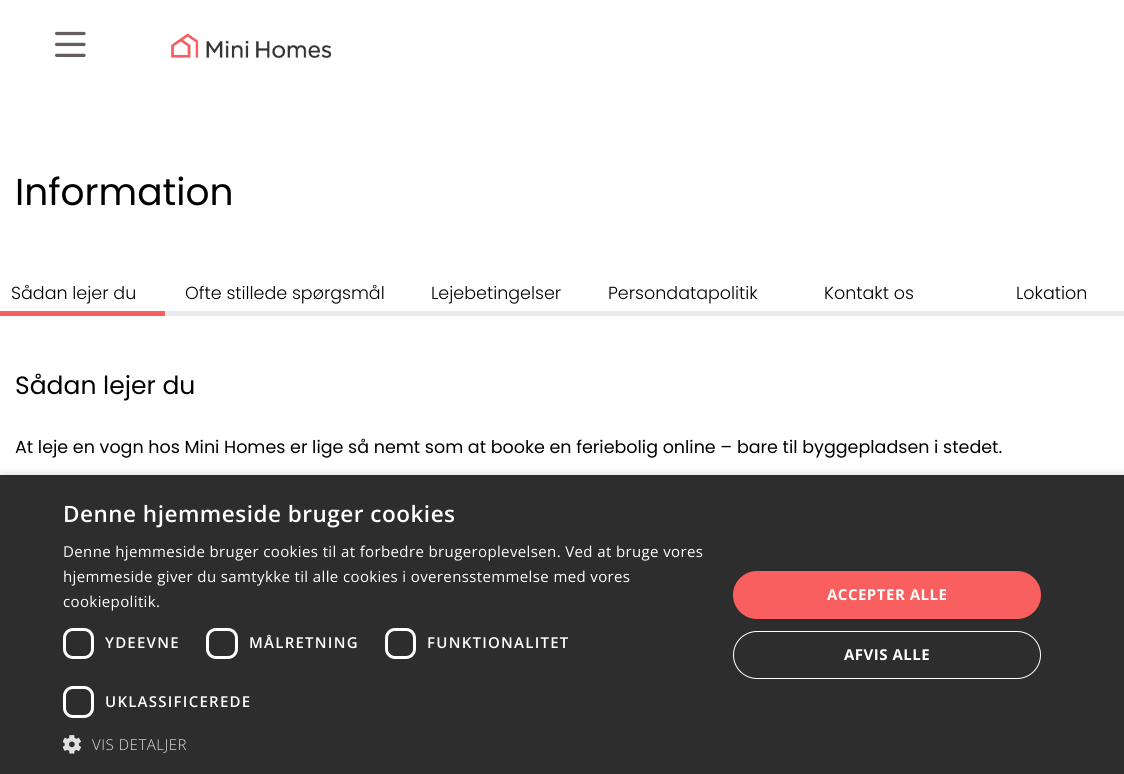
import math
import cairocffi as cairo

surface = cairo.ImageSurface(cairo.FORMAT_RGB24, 1124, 774)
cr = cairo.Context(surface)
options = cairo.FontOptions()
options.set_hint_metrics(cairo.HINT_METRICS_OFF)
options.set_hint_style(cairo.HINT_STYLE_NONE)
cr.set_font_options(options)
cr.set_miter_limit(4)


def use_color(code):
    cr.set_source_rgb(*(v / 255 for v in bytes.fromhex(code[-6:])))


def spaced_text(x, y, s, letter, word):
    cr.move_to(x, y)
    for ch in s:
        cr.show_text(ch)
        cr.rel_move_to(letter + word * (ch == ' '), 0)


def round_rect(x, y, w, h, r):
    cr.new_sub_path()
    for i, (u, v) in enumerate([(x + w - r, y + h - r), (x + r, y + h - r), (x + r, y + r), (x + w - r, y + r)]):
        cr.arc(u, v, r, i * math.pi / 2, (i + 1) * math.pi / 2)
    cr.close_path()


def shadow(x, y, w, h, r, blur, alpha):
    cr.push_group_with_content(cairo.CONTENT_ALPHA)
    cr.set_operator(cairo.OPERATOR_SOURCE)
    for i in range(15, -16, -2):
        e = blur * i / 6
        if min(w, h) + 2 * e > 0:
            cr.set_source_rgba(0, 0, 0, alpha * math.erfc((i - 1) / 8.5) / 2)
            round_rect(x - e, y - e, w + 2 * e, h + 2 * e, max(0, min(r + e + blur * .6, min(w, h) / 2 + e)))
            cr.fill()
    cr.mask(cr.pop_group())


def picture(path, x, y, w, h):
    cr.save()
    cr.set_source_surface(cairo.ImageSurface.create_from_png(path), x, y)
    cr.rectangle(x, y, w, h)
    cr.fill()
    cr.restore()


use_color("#ffffff")
cr.paint()
picture("img1.png", 55, 31, 31, 26)
picture("img2.png", 171, 33, 161, 25)
cr.select_font_face("Poppins")
cr.set_font_size(37.5)
use_color("#000000")
cr.move_to(15, 205)
cr.show_text("Information")
use_color("#f95f5f")
cr.rectangle(0, 311, 165, 5)
cr.fill()
cr.select_font_face("Poppins Light")
cr.set_font_size(17.5)
use_color("#000000")
cr.move_to(11, 299)
cr.show_text("Sådan lejer du")
use_color("#e7eaea")
cr.rectangle(165, 311, 959, 5)
cr.fill()
use_color("#000000")
cr.move_to(185, 299)
cr.show_text("Ofte stillede spørgsmål")
cr.move_to(431, 299)
cr.show_text("Lejebetingelser")
cr.move_to(608, 299)
cr.show_text("Persondatapolitik")
cr.move_to(824, 299)
cr.show_text("Kontakt os")
cr.move_to(1016, 299)
cr.show_text("Lokation")
cr.select_font_face("Poppins")
cr.set_font_size(25)
cr.move_to(15, 394)
cr.show_text("Sådan lejer du")
cr.set_font_size(17.5)
cr.move_to(15, 453)
cr.show_text("At leje en vogn hos Mini Homes er lige så nemt som at booke en feriebolig online – bare til byggepladsen i stedet.")
use_color("#000000")
shadow(1, 478, 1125, 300, 0, 5, 0.35)
use_color("#2d2d2d")
cr.rectangle(0, 475, 1124, 299)
cr.fill()
cr.select_font_face("Open Sans SemiBold")
cr.set_font_size(22.5)
use_color("#ffffff")
spaced_text(63, 522, "Denne hjemmeside bruger cookies", 0.5, 0)
cr.select_font_face("Open Sans")
cr.set_font_size(15)
spaced_text(63, 557, "Denne hjemmeside bruger cookies til at forbedre brugeroplevelsen. Ved at bruge vores", 0.38, 0)
spaced_text(63, 582, "hjemmeside giver du samtykke til alle cookies i overensstemmelse med vores", 0.38, 0)
spaced_text(63, 607, "cookiepolitik.", 0.38, 0)
round_rect(64.5, 629.5, 28, 28, 8.5)
cr.set_line_width(3)
cr.stroke()
cr.select_font_face("Open Sans SemiBold")
spaced_text(105, 648, "YDEEVNE", 1.25, 0)
round_rect(207.5, 629.5, 29, 28, 8.5)
cr.stroke()
spaced_text(249, 648, "MÅLRETNING", 1.25, 0)
round_rect(386.5, 629.5, 28, 28, 8.5)
cr.stroke()
spaced_text(427, 648, "FUNKTIONALITET", 1.25, 0)
round_rect(64.5, 687.5, 28, 29, 8.5)
cr.stroke()
spaced_text(105, 707, "UKLASSIFICEREDE", 1.25, 0)
picture("img3.png", 63, 735, 18, 19)
cr.select_font_face("Open Sans Light")
use_color("#e0e0e0")
spaced_text(92, 750, "VIS DETALJER", 0.5, 0)
use_color("#f95f5f")
round_rect(733, 571, 308, 48, 24)
cr.fill()
cr.select_font_face("Open Sans", cairo.FONT_SLANT_NORMAL, cairo.FONT_WEIGHT_BOLD)
use_color("#ffffff")
spaced_text(827, 600, "ACCEPTER ALLE", 0.5, 0)
round_rect(733.5, 631.5, 307, 47, 23.5)
cr.set_line_width(1)
cr.stroke()
spaced_text(844, 660, "AFVIS ALLE", 0.5, 0)
surface.write_to_png("result.png")
